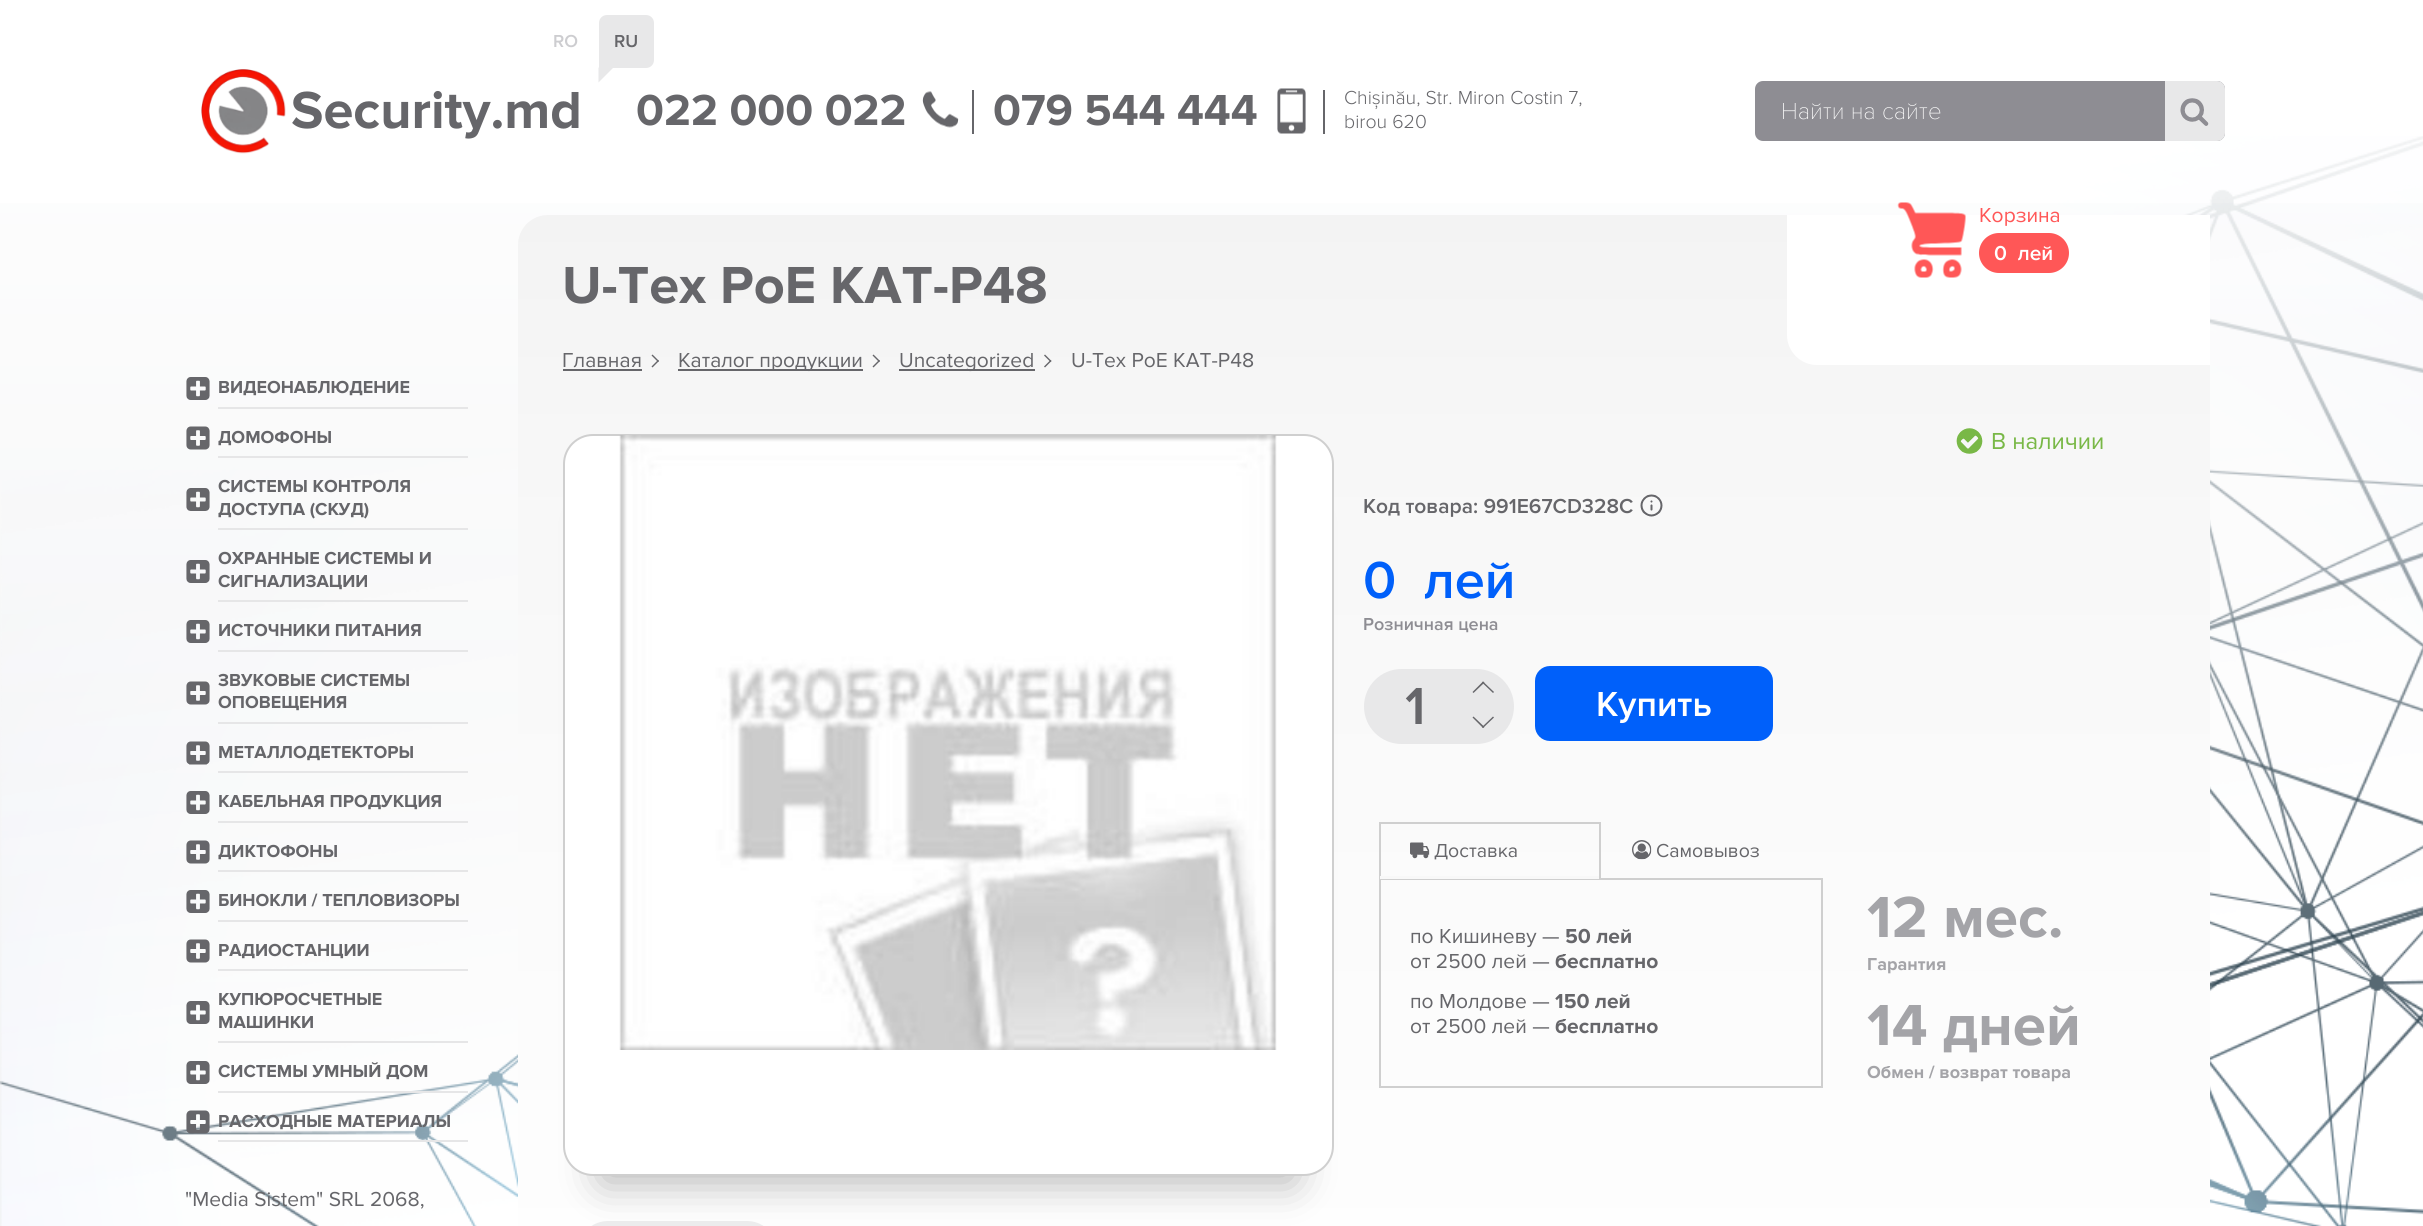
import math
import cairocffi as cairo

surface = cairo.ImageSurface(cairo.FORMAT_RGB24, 2423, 1226)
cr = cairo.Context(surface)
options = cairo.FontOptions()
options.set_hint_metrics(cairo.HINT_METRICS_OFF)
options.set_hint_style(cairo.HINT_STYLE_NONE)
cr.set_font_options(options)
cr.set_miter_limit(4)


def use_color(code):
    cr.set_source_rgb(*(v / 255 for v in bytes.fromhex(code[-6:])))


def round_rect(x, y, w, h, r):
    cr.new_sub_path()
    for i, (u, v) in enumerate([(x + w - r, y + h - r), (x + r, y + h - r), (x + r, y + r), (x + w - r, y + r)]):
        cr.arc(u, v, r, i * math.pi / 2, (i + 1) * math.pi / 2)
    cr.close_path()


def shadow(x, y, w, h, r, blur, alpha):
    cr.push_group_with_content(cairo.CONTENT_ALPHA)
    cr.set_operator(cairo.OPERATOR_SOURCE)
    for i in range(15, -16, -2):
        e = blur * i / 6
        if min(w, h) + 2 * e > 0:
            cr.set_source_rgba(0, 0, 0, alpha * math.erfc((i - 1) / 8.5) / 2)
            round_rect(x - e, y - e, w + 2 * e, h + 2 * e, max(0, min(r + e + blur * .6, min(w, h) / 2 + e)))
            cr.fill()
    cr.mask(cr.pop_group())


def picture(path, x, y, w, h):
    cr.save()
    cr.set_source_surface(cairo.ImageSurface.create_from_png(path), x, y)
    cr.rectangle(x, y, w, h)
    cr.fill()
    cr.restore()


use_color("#ffffff")
cr.paint()
gradient = cairo.LinearGradient(1212, 0, 1212, 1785)
gradient.add_color_stop_rgba(0, 1, 1, 1, 1)
gradient.add_color_stop_rgba(1, 0.914, 0.918, 0.922, 1)
cr.set_source(gradient)
cr.rectangle(0, 203, 2423, 1023)
cr.fill()
cr.select_font_face("Proxima Nova SemiBold")
cr.set_font_size(18)
use_color("#cdcdd0")
cr.move_to(553, 47)
cr.show_text("RO")
use_color("#e8e8e9")
cr.new_path()
cr.move_to(607, 15)
cr.line_to(646, 15)
cr.curve_to(650.5, 15, 654, 18.5, 654, 23)
cr.line_to(654, 60)
cr.curve_to(654, 64.5, 650.5, 68, 646, 68)
cr.line_to(599, 68)
cr.line_to(599, 23)
cr.curve_to(599, 18.5, 602.5, 15, 607, 15)
cr.close_path()
cr.fill()
use_color("#66666a")
cr.move_to(614, 47)
cr.show_text("RU")
use_color("#e8e8e9")
cr.new_path()
cr.move_to(598.5, 67.5)
cr.line_to(613.5, 67.5)
cr.line_to(598.5, 82.5)
cr.close_path()
cr.fill()
picture("img6.png", 0, 136, 2423, 1090)
picture("img1.png", 201, 69, 85, 85)
cr.select_font_face("Proxima Nova", cairo.FONT_SLANT_NORMAL, cairo.FONT_WEIGHT_BOLD)
cr.set_font_size(54)
use_color("#66666a")
cr.move_to(291, 128)
cr.show_text("Security.md")
cr.set_font_size(45)
cr.move_to(636, 125)
cr.show_text("022 000 022")
picture("img2.png", 922, 91, 37, 37)
cr.rectangle(972, 90, 2, 44)
cr.fill()
cr.move_to(993, 125)
cr.show_text("079 544 444")
picture("img3.png", 1277, 88, 29, 46)
cr.rectangle(1323, 90, 2, 44)
cr.fill()
cr.select_font_face("Proxima Nova Light")
cr.set_font_size(19.5)
cr.move_to(1344, 104)
cr.show_text("Chișinău, Str. Miron Costin 7,")
cr.move_to(1344, 128)
cr.show_text("birou 620")
use_color("#8e8d93")
round_rect(1756, 82, 468, 58, 7)
cr.fill_preserve()
cr.stroke()
cr.select_font_face("Proxima Nova Thin")
cr.set_font_size(24)
use_color("#ffffff")
cr.move_to(1781, 119)
cr.show_text("Найти на сайте")
use_color("#e8e8e9")
cr.new_path()
cr.move_to(2165, 81)
cr.line_to(2217, 81)
cr.curve_to(2221.5, 81, 2225, 84.5, 2225, 89)
cr.line_to(2225, 133)
cr.curve_to(2225, 137.5, 2221.5, 141, 2217, 141)
cr.line_to(2165, 141)
cr.close_path()
cr.fill()
picture("img4.png", 2180, 98, 29, 28)
gradient = cairo.LinearGradient(1364, 214, 1364, 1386)
gradient.add_color_stop_rgba(0, 0.953, 0.953, 0.953, 1)
gradient.add_color_stop_rgba(0.2, 0.969, 0.969, 0.969, 1)
gradient.add_color_stop_rgba(1, 1, 1, 1, 1)
cr.set_source(gradient)
round_rect(518, 215, 1692, 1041, 30)
cr.fill()
use_color("#ffffff")
cr.new_path()
cr.move_to(1787, 215)
cr.line_to(2210, 215)
cr.line_to(2210, 365)
cr.line_to(1817, 365)
cr.curve_to(1800.5, 365, 1787, 351.5, 1787, 335)
cr.close_path()
cr.fill()
picture("img5.png", 1897, 202, 69, 76)
cr.select_font_face("Proxima Nova")
cr.set_font_size(21)
use_color("#ff5757")
cr.move_to(1979, 222)
cr.show_text("Корзина")
round_rect(1979, 233, 90, 40, 20)
cr.fill()
cr.select_font_face("Proxima Nova SemiBold")
use_color("#ffffff")
cr.move_to(1994, 260)
cr.show_text("0  лей")
picture("img7.png", 186, 377, 24, 23)
use_color("#e6e6e7")
cr.rectangle(218, 407, 250, 2)
cr.fill()
cr.select_font_face("Proxima Nova", cairo.FONT_SLANT_NORMAL, cairo.FONT_WEIGHT_BOLD)
cr.set_font_size(18)
use_color("#66666a")
cr.move_to(218, 393)
cr.show_text("ВИДЕОНАБЛЮДЕНИЕ")
picture("img8.png", 186, 426, 24, 24)
use_color("#e6e6e7")
cr.rectangle(218, 456, 250, 2)
cr.fill()
use_color("#66666a")
cr.move_to(218, 443)
cr.show_text("ДОМОФОНЫ")
picture("img9.png", 186, 488, 24, 23)
use_color("#e6e6e7")
cr.rectangle(218, 528, 250, 2)
cr.fill()
use_color("#66666a")
cr.move_to(218, 492)
cr.show_text("СИСТЕМЫ КОНТРОЛЯ")
cr.move_to(218, 515)
cr.show_text("ДОСТУПА (СКУД)")
picture("img10.png", 186, 560, 24, 23)
use_color("#e6e6e7")
cr.rectangle(218, 600, 250, 2)
cr.fill()
use_color("#66666a")
cr.move_to(218, 564)
cr.show_text("ОХРАННЫЕ СИСТЕМЫ И")
cr.move_to(218, 587)
cr.show_text("СИГНАЛИЗАЦИИ")
picture("img11.png", 186, 620, 24, 23)
use_color("#e6e6e7")
cr.rectangle(218, 650, 250, 2)
cr.fill()
use_color("#66666a")
cr.move_to(218, 636)
cr.show_text("ИСТОЧНИКИ ПИТАНИЯ")
picture("img12.png", 186, 681, 24, 24)
use_color("#e6e6e7")
cr.rectangle(218, 722, 250, 2)
cr.fill()
use_color("#66666a")
cr.move_to(218, 686)
cr.show_text("ЗВУКОВЫЕ СИСТЕМЫ")
cr.move_to(218, 708)
cr.show_text("ОПОВЕЩЕНИЯ")
picture("img13.png", 186, 741, 24, 24)
use_color("#e6e6e7")
cr.rectangle(218, 771, 250, 2)
cr.fill()
use_color("#66666a")
cr.move_to(218, 758)
cr.show_text("МЕТАЛЛОДЕТЕКТОРЫ")
picture("img14.png", 186, 791, 24, 23)
use_color("#e6e6e7")
cr.rectangle(218, 821, 250, 2)
cr.fill()
use_color("#66666a")
cr.move_to(218, 807)
cr.show_text("КАБЕЛЬНАЯ ПРОДУКЦИЯ")
picture("img15.png", 186, 840, 24, 24)
use_color("#e6e6e7")
cr.rectangle(218, 870, 250, 2)
cr.fill()
use_color("#66666a")
cr.move_to(218, 857)
cr.show_text("ДИКТОФОНЫ")
picture("img16.png", 186, 890, 24, 23)
use_color("#e6e6e7")
cr.rectangle(218, 920, 250, 2)
cr.fill()
use_color("#66666a")
cr.move_to(218, 906)
cr.show_text("БИНОКЛИ / ТЕПЛОВИЗОРЫ")
picture("img17.png", 186, 939, 24, 24)
use_color("#e6e6e7")
cr.rectangle(218, 969, 250, 2)
cr.fill()
use_color("#66666a")
cr.move_to(218, 956)
cr.show_text("РАДИОСТАНЦИИ")
picture("img18.png", 186, 1001, 24, 23)
use_color("#e6e6e7")
cr.rectangle(218, 1041, 250, 2)
cr.fill()
use_color("#66666a")
cr.move_to(218, 1005)
cr.show_text("КУПЮРОСЧЕТНЫЕ")
cr.move_to(218, 1028)
cr.show_text("МАШИНКИ")
picture("img19.png", 186, 1061, 24, 23)
use_color("#e6e6e7")
cr.rectangle(218, 1091, 250, 2)
cr.fill()
use_color("#66666a")
cr.move_to(218, 1077)
cr.show_text("СИСТЕМЫ УМНЫЙ ДОМ")
picture("img20.png", 186, 1110, 24, 24)
use_color("#e6e6e7")
cr.rectangle(218, 1140, 250, 2)
cr.fill()
use_color("#66666a")
cr.move_to(218, 1127)
cr.show_text("РАСХОДНЫЕ МАТЕРИАЛЫ")
cr.select_font_face("Proxima Nova")
cr.set_font_size(21)
cr.move_to(185, 1206)
cr.show_text("\"Media Sistem\" SRL 2068,")
cr.select_font_face("Proxima Nova", cairo.FONT_SLANT_NORMAL, cairo.FONT_WEIGHT_BOLD)
cr.set_font_size(54)
cr.move_to(562, 303)
cr.show_text("U-Tex PoE KAT-P48")
cr.select_font_face("Proxima Nova")
cr.set_font_size(21)
cr.move_to(562, 367)
cr.show_text("Главная")
cr.rectangle(563, 369, 79, 2)
cr.fill()
cr.new_path()
cr.move_to(651.5, 355.5)
cr.line_to(652.5, 354.5)
cr.line_to(659, 361)
cr.line_to(658, 362)
cr.close_path()
cr.fill()
cr.new_path()
cr.move_to(651.5, 366.5)
cr.line_to(658, 360)
cr.line_to(659, 361)
cr.line_to(652.5, 367.5)
cr.close_path()
cr.fill()
cr.rectangle(678, 369, 185, 2)
cr.fill()
cr.move_to(678, 367)
cr.show_text("Каталог продукции")
cr.new_path()
cr.move_to(872.5, 355.5)
cr.line_to(873.5, 354.5)
cr.line_to(880, 361)
cr.line_to(879, 362)
cr.close_path()
cr.fill()
cr.new_path()
cr.move_to(872.5, 366.5)
cr.line_to(879, 360)
cr.line_to(880, 361)
cr.line_to(873.5, 367.5)
cr.close_path()
cr.fill()
cr.rectangle(899, 369, 136, 2)
cr.fill()
cr.move_to(899, 367)
cr.show_text("Uncategorized")
cr.new_path()
cr.move_to(1044, 355.5)
cr.line_to(1045, 354.5)
cr.line_to(1051.5, 361)
cr.line_to(1050.5, 362)
cr.close_path()
cr.fill()
cr.new_path()
cr.move_to(1044, 366.5)
cr.line_to(1050.5, 360)
cr.line_to(1051.5, 361)
cr.line_to(1045, 367.5)
cr.close_path()
cr.fill()
cr.move_to(1071, 367)
cr.show_text("U-Tex PoE KAT-P48")
use_color("#000000")
shadow(603, 519, 690, 662, 0, 21, 0.3)
use_color("#ffffff")
round_rect(564, 435, 769, 740, 29)
cr.fill_preserve()
use_color("#cfcfcf")
cr.stroke()
picture("img21.png", 619, 435, 658, 615)
picture("img22.png", 1956, 428, 27, 26)
cr.set_font_size(24)
use_color("#79b847")
cr.move_to(1991, 449)
cr.show_text("В наличии")
cr.select_font_face("Proxima Nova SemiBold")
cr.set_font_size(21)
use_color("#66666a")
cr.move_to(1363, 513)
cr.show_text("Код товара: 991E67CD328C")
picture("img23.png", 1640, 494, 23, 23)
cr.set_font_size(54)
use_color("#0060fa")
cr.move_to(1363, 598)
cr.show_text("0  лей")
cr.set_font_size(18)
use_color("#8e8d93")
cr.move_to(1363, 630)
cr.show_text("Розничная цена")
use_color("#e8e8e9")
round_rect(1364, 669, 150, 75, 37.5)
cr.fill()
use_color("#66666a")
cr.new_path()
cr.move_to(1493, 716.5)
cr.line_to(1494, 717.5)
cr.line_to(1483, 728)
cr.line_to(1482, 727)
cr.close_path()
cr.fill()
cr.new_path()
cr.move_to(1473.5, 716.5)
cr.line_to(1484.5, 727)
cr.line_to(1483, 728)
cr.line_to(1472.5, 717.5)
cr.close_path()
cr.move_to(1473.5, 693)
cr.line_to(1472.5, 692)
cr.line_to(1483, 681.5)
cr.line_to(1484.5, 682.5)
cr.close_path()
cr.fill()
cr.set_font_size(54)
cr.move_to(1405, 724)
cr.show_text("1")
cr.new_path()
cr.move_to(1493, 693)
cr.line_to(1482, 682.5)
cr.line_to(1483, 681.5)
cr.line_to(1494, 692)
cr.close_path()
cr.fill()
use_color("#0060fa")
round_rect(1536, 667, 236, 73, 14)
cr.fill_preserve()
cr.stroke()
cr.set_font_size(36)
use_color("#ffffff")
cr.move_to(1596, 716)
cr.show_text("Купить")
use_color("#cfcfcf")
cr.rectangle(1379, 822, 222, 2)
cr.fill()
cr.rectangle(1599, 822, 2, 56)
cr.fill()
cr.rectangle(1379, 822, 2, 56)
cr.fill()
picture("img24.png", 1410, 842, 20, 17)
cr.select_font_face("Proxima Nova")
cr.set_font_size(19.5)
use_color("#66666a")
cr.move_to(1434, 857)
cr.show_text("Доставка")
cr.rectangle(1380, 879, 442, 208)
use_color("#cfcfcf")
cr.stroke()
use_color("#f8f8f8")
cr.rectangle(1380, 876, 219, 3)
cr.fill()
picture("img25.png", 1632, 840, 20, 20)
use_color("#66666a")
cr.move_to(1656, 857)
cr.show_text("Самовывоз")
cr.set_font_size(21)
cr.move_to(1410, 943)
cr.show_text("по Кишиневу —")
cr.select_font_face("Proxima Nova", cairo.FONT_SLANT_NORMAL, cairo.FONT_WEIGHT_BOLD)
cr.move_to(1565, 943)
cr.show_text("50 лей")
cr.select_font_face("Proxima Nova")
cr.move_to(1410, 968)
cr.show_text("от 2500 лей —")
cr.select_font_face("Proxima Nova", cairo.FONT_SLANT_NORMAL, cairo.FONT_WEIGHT_BOLD)
cr.move_to(1555, 968)
cr.show_text("бесплатно")
cr.select_font_face("Proxima Nova")
cr.move_to(1410, 1008)
cr.show_text("по Молдове —")
cr.select_font_face("Proxima Nova", cairo.FONT_SLANT_NORMAL, cairo.FONT_WEIGHT_BOLD)
cr.move_to(1555, 1008)
cr.show_text("150 лей")
cr.select_font_face("Proxima Nova")
cr.move_to(1410, 1033)
cr.show_text("от 2500 лей —")
cr.select_font_face("Proxima Nova", cairo.FONT_SLANT_NORMAL, cairo.FONT_WEIGHT_BOLD)
cr.move_to(1555, 1033)
cr.show_text("бесплатно")
cr.set_font_size(60)
use_color("#a4a4a8")
cr.move_to(1867, 937)
cr.show_text("12 мес.")
cr.set_font_size(18)
cr.move_to(1867, 970)
cr.show_text("Гарантия")
cr.set_font_size(60)
cr.move_to(1867, 1045)
cr.show_text("14 дней")
cr.set_font_size(18)
cr.move_to(1867, 1078)
cr.show_text("Обмен / возврат товара")
use_color("#ececed")
round_rect(578, 1221, 199, 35, 30)
cr.fill()
surface.write_to_png("result.png")
